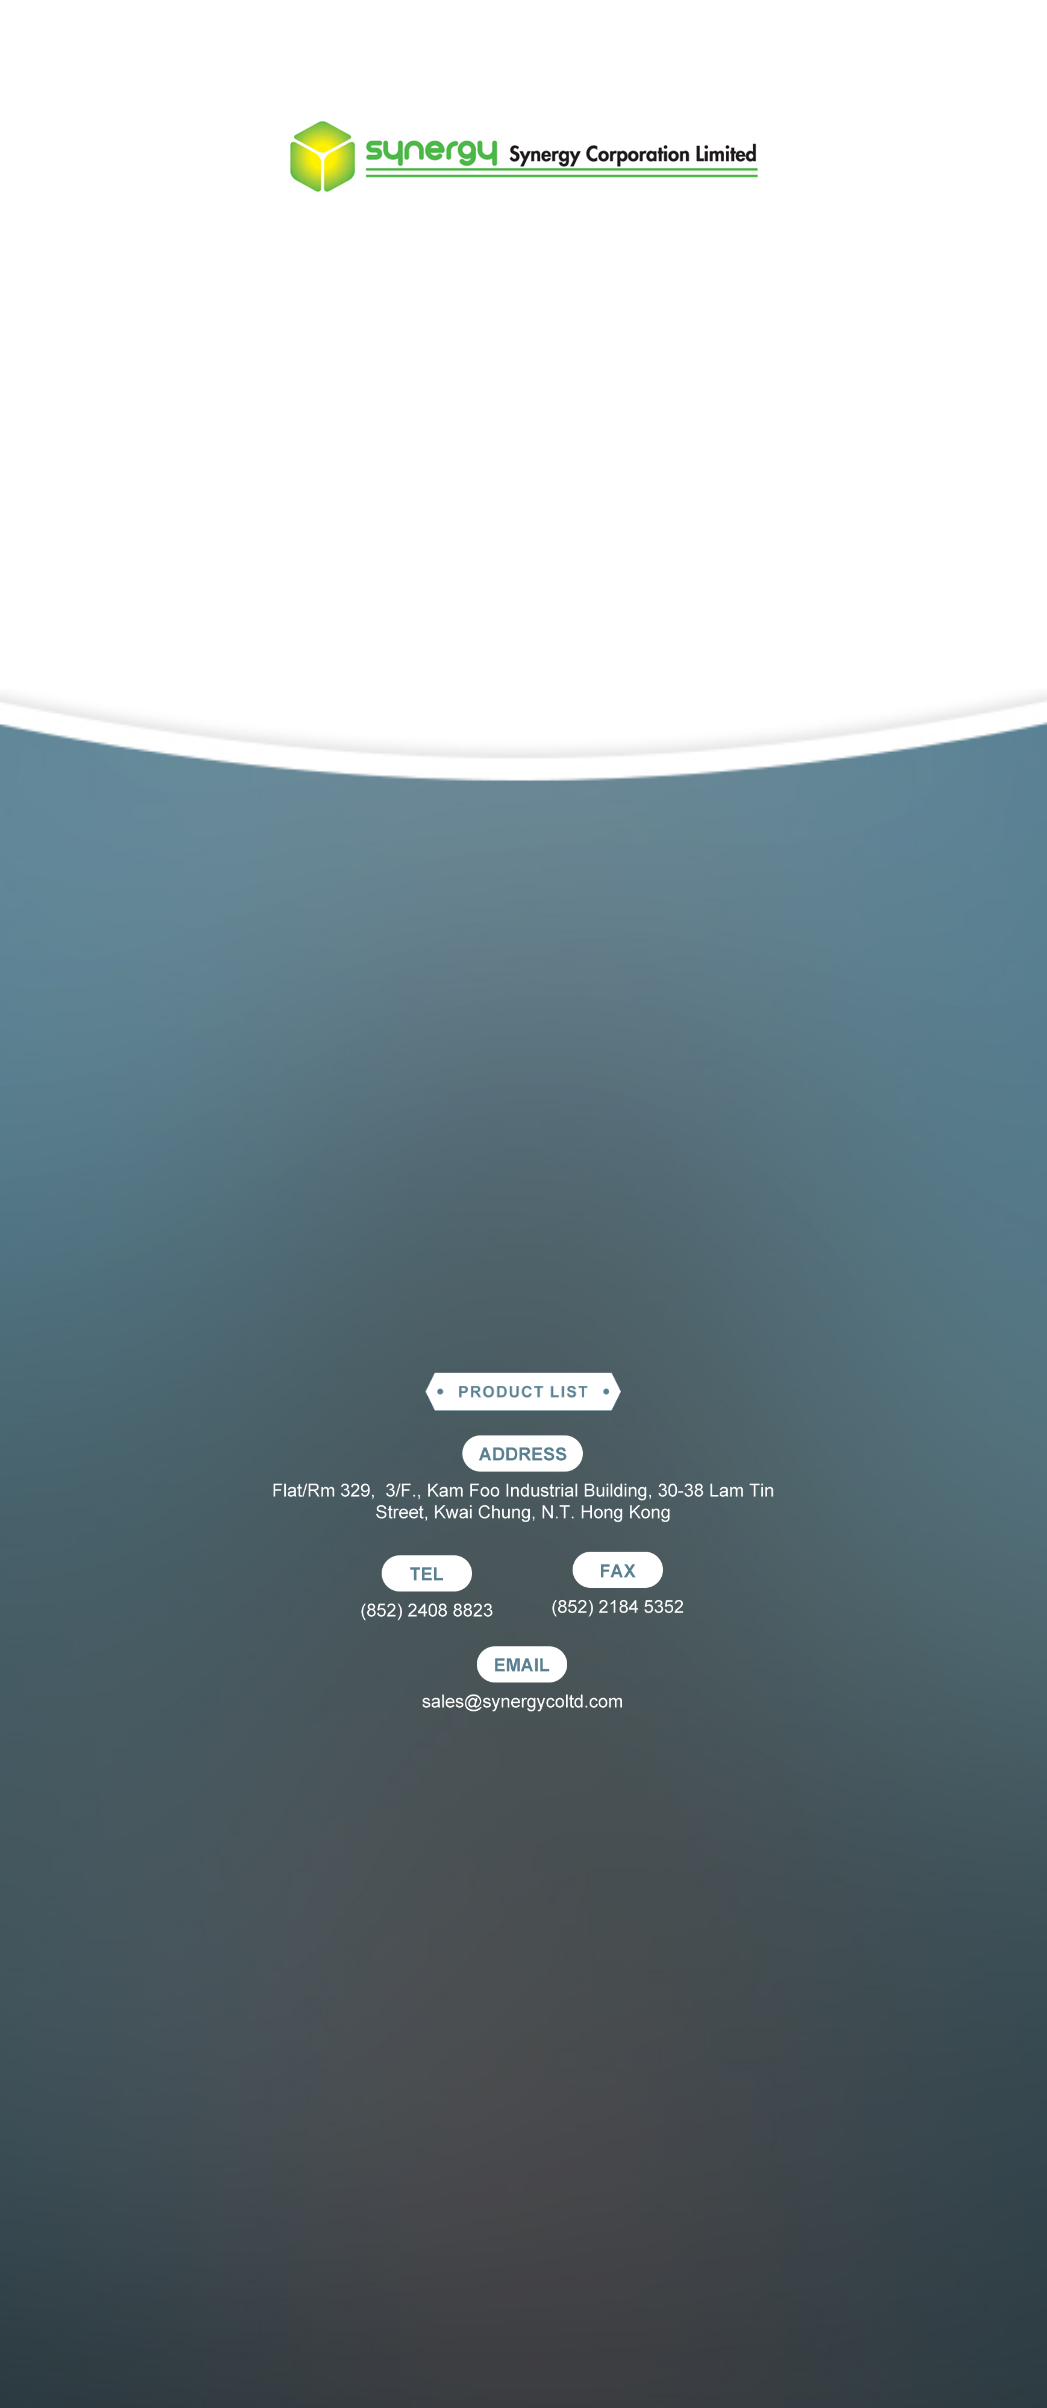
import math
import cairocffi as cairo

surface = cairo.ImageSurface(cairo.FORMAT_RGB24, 1047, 2408)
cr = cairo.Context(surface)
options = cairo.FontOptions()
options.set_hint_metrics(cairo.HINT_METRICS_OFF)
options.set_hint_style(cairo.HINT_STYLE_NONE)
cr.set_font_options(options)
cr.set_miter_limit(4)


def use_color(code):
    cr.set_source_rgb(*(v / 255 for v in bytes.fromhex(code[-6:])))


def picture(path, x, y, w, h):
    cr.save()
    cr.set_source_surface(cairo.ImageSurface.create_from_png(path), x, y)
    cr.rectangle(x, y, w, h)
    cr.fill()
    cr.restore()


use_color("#ffffff")
cr.paint()
picture("img1.png", 289, 121, 470, 74)
picture("img2.png", 0, 689, 1047, 1719)
picture("img3.png", 425, 1372, 197, 41)
picture("img4.png", 273, 1435, 501, 277)
surface.write_to_png("result.png")
